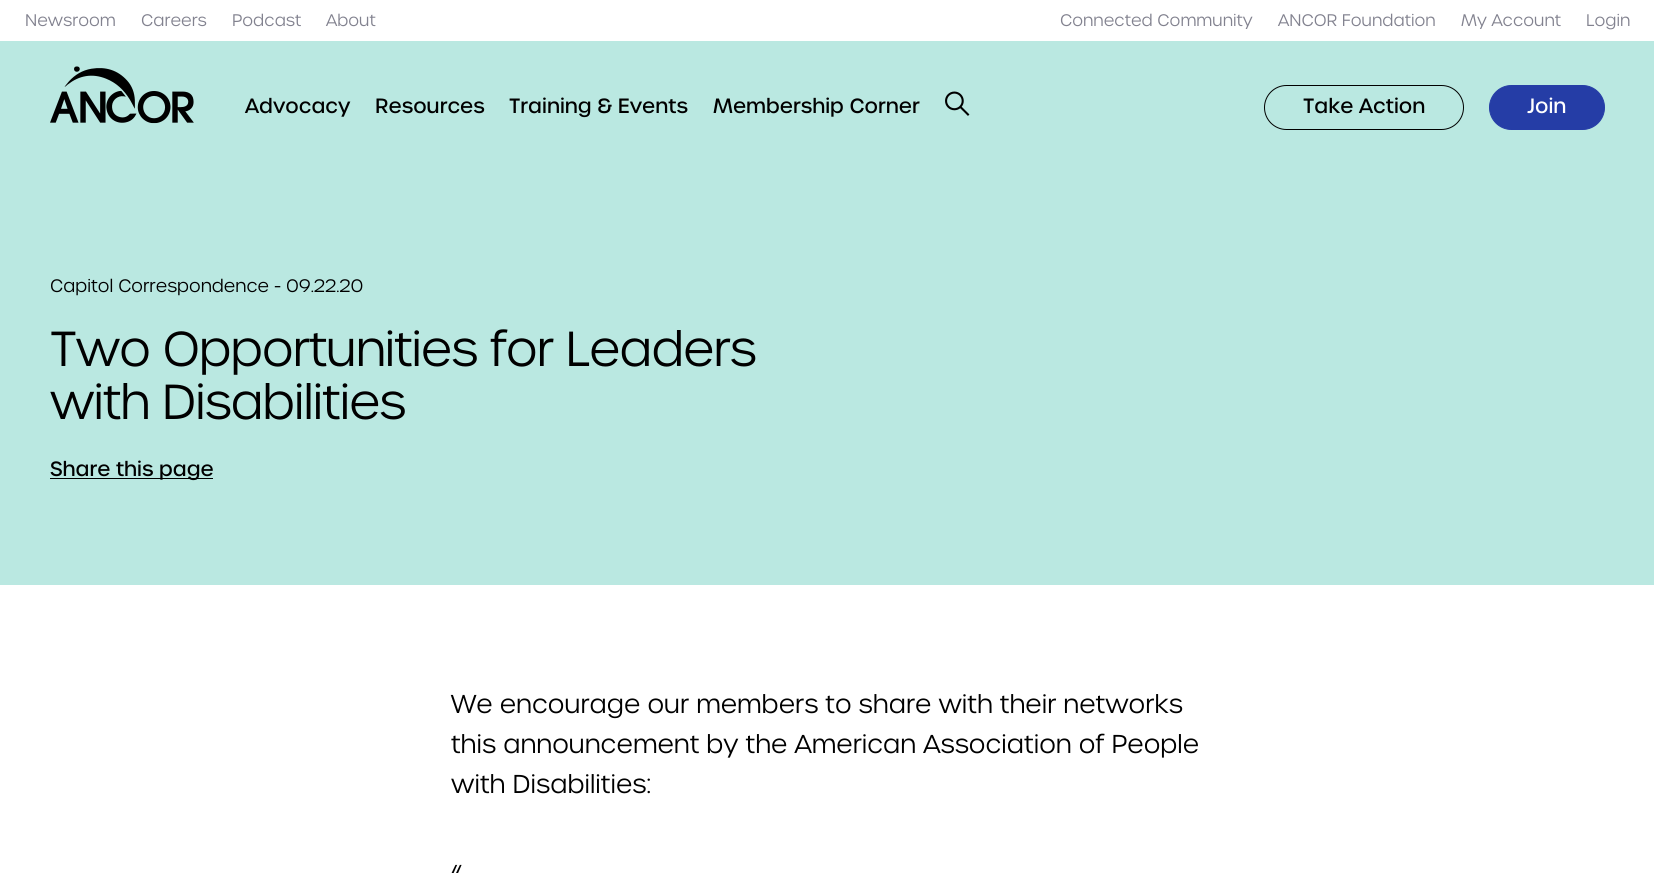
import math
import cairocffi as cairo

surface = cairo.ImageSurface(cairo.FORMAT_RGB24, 1654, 873)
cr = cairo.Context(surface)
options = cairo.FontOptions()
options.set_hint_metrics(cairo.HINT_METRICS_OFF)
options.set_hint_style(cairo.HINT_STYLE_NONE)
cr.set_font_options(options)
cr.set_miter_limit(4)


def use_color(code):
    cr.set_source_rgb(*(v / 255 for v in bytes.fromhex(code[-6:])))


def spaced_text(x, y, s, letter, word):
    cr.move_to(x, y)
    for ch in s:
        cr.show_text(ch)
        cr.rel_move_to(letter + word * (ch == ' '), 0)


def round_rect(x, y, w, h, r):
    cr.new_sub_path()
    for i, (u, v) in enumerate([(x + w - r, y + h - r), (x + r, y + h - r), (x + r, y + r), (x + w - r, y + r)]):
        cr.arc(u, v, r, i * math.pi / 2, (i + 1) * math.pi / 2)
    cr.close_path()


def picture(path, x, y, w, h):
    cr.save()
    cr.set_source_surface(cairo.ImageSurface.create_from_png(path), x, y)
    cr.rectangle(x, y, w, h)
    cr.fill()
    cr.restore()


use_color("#ffffff")
cr.paint()
cr.select_font_face("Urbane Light")
cr.set_font_size(16.25)
use_color("#82828f")
cr.move_to(25, 26)
cr.show_text("Newsroom")
cr.move_to(141, 26)
cr.show_text("Careers")
cr.move_to(232, 26)
cr.show_text("Podcast")
cr.move_to(326, 26)
cr.show_text("About")
cr.move_to(1060, 26)
cr.show_text("Connected Community")
cr.move_to(1278, 26)
cr.show_text("ANCOR Foundation")
cr.move_to(1461, 26)
cr.show_text("My Account")
cr.move_to(1586, 26)
cr.show_text("Login")
use_color("#bae8e1")
cr.rectangle(0, 41, 1654, 544)
cr.fill()
picture("img1.png", 50, 66, 144, 58)
cr.select_font_face("Urbane Medium")
cr.set_font_size(20)
use_color("#000000")
cr.move_to(245, 113)
cr.show_text("Advocacy")
cr.move_to(375, 113)
cr.show_text("Resources")
cr.move_to(509, 113)
cr.show_text("Training & Events")
cr.move_to(713, 113)
cr.show_text("Membership Corner")
picture("img2.png", 945, 91, 25, 25)
round_rect(1264.5, 85.5, 199, 44, 22)
cr.set_line_width(1)
cr.stroke()
cr.move_to(1303, 113)
cr.show_text("Take Action")
use_color("#253da6")
round_rect(1489.5, 85.5, 115, 44, 22)
cr.fill_preserve()
cr.stroke()
use_color("#ffffff")
cr.move_to(1527, 113)
cr.show_text("Join")
cr.select_font_face("Urbane Light")
cr.set_font_size(17.5)
use_color("#000000")
cr.move_to(50, 292)
cr.show_text("Capitol Correspondence - 09.22.20")
cr.set_font_size(47.5)
spaced_text(50, 366, "Two Opportunities for Leaders", -0.95, 0)
spaced_text(50, 419, "with Disabilities", -0.95, 0)
cr.rectangle(50, 478, 163, 1)
cr.fill()
cr.select_font_face("Urbane Medium")
cr.set_font_size(20)
cr.move_to(50, 476)
cr.show_text("Share this page")
cr.select_font_face("Urbane Light")
cr.set_font_size(25)
cr.move_to(451, 713)
cr.show_text("We encourage our members to share with their networks")
cr.move_to(451, 753)
cr.show_text("this announcement by the American Association of People")
cr.move_to(451, 793)
cr.show_text("with Disabilities:")
cr.move_to(451, 883)
cr.show_text("“")
surface.write_to_png("result.png")
